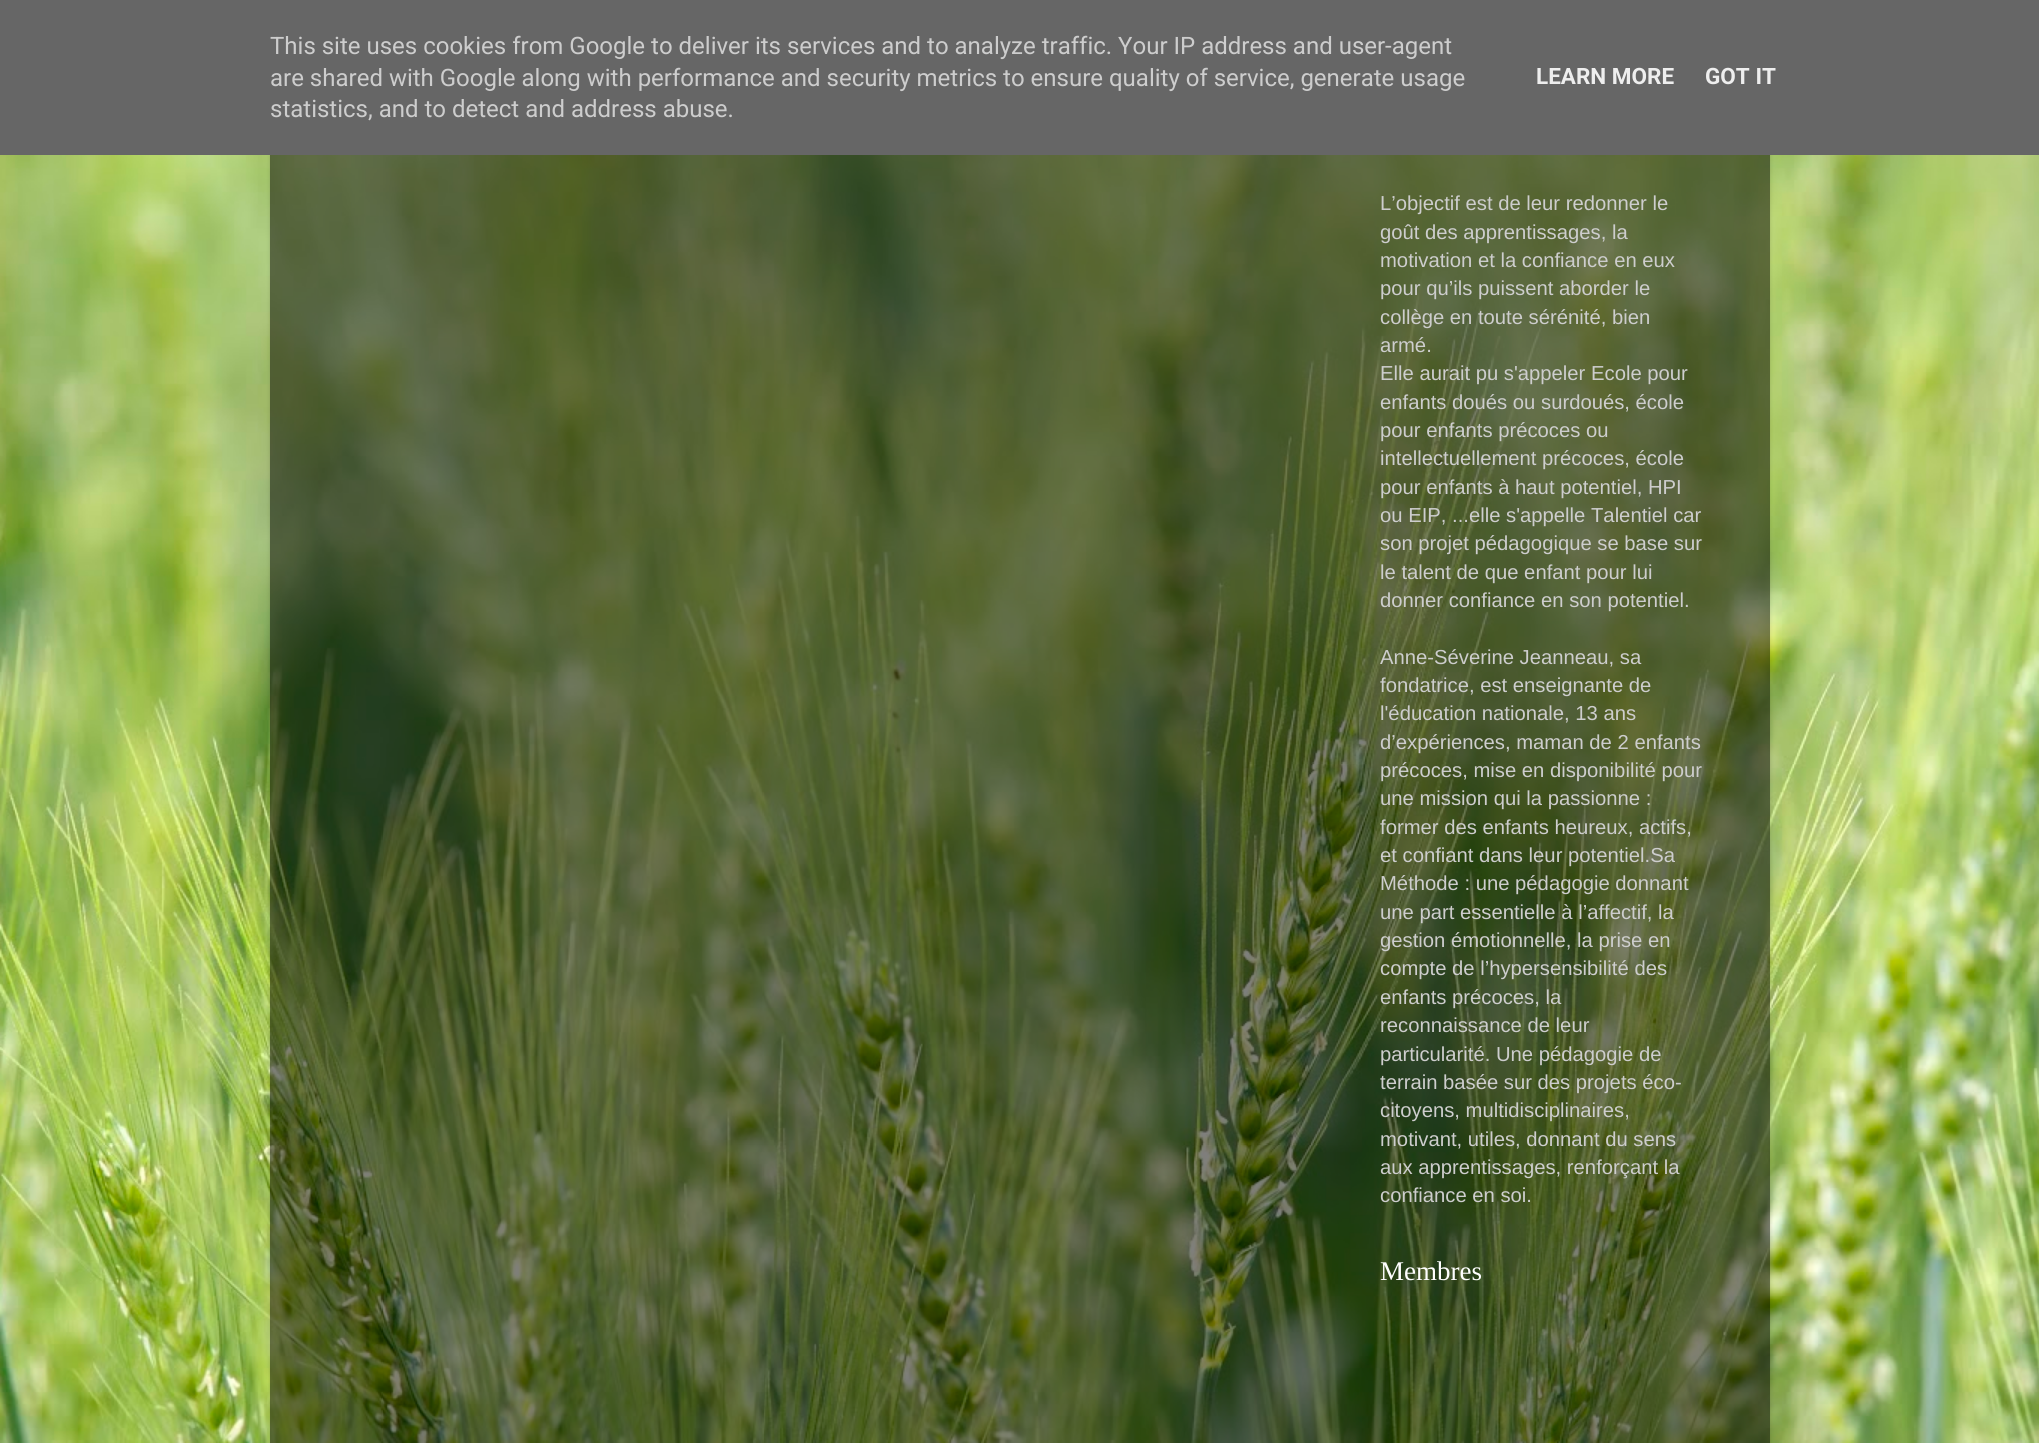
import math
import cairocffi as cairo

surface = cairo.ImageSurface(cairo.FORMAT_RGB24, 2039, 1443)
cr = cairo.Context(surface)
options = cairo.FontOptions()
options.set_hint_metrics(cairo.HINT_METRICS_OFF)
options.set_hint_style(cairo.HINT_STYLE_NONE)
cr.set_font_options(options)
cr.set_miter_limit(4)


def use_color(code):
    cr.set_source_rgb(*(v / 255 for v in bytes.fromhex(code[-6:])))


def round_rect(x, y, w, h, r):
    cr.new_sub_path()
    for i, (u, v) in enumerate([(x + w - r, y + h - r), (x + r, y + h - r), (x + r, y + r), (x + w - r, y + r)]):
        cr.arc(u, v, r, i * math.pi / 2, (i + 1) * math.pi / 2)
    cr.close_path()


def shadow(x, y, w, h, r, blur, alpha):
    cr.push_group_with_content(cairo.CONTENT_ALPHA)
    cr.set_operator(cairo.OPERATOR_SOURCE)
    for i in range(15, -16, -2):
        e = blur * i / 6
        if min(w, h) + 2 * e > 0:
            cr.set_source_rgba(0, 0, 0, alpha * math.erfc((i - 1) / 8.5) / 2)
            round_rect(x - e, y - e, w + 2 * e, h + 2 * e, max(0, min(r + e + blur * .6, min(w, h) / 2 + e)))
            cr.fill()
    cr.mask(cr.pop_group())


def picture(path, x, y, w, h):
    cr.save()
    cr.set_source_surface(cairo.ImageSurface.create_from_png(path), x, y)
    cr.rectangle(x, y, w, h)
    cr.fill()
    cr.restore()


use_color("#ffffff")
cr.paint()
picture("img1.png", 0, 155, 2039, 1288)
cr.save()
cr.set_fill_rule(cairo.FILL_RULE_EVEN_ODD)
cr.new_path()
cr.move_to(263, 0)
cr.line_to(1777, 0)
cr.line_to(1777, 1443)
cr.line_to(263, 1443)
cr.close_path()
cr.move_to(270, -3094)
cr.line_to(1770, -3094)
cr.line_to(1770, 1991)
cr.line_to(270, 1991)
cr.close_path()
cr.clip()
use_color("#000000")
shadow(270, -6, 1500, 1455, 0, 2, 0.15)
cr.restore()
use_color("#666666")
cr.rectangle(0, 0, 2039, 155)
cr.fill()
cr.select_font_face("Roboto")
cr.set_font_size(24)
use_color("#cdcdcd")
cr.move_to(270, 54)
cr.show_text("This site uses cookies from Google to deliver its services and to analyze traffic. Your IP address and user-agent")
cr.move_to(270, 86)
cr.show_text("are shared with Google along with performance and security metrics to ensure quality of service, generate usage")
cr.move_to(270, 117)
cr.show_text("statistics, and to detect and address abuse.")
cr.select_font_face("Roboto", cairo.FONT_SLANT_NORMAL, cairo.FONT_WEIGHT_BOLD)
cr.set_font_size(22.5)
use_color("#eeeeee")
cr.move_to(1536, 84)
cr.show_text("LEARN MORE")
cr.move_to(1705, 84)
cr.show_text("GOT IT")
cr.set_source_rgba(0, 0, 0, 0.5)
cr.rectangle(270, 155, 1500, 1288)
cr.fill()
cr.select_font_face("Liberation Sans")
cr.set_font_size(20.25)
use_color("#cdcdcd")
cr.move_to(1380, 210)
cr.show_text("L’objectif est de leur redonner le")
cr.move_to(1380, 239)
cr.show_text("goût des apprentissages, la")
cr.move_to(1380, 267)
cr.show_text("motivation et la confiance en eux")
cr.move_to(1380, 295)
cr.show_text("pour qu’ils puissent aborder le")
cr.move_to(1380, 324)
cr.show_text("collège en toute sérénité, bien")
cr.move_to(1380, 352)
cr.show_text("armé.")
cr.move_to(1380, 380)
cr.show_text("Elle aurait pu s'appeler Ecole pour")
cr.move_to(1380, 409)
cr.show_text("enfants doués ou surdoués, école")
cr.move_to(1380, 437)
cr.show_text("pour enfants précoces ou")
cr.move_to(1380, 465)
cr.show_text("intellectuellement précoces, école")
cr.move_to(1380, 494)
cr.show_text("pour enfants à haut potentiel, HPI")
cr.move_to(1380, 522)
cr.show_text("ou EIP, ...elle s'appelle Talentiel car")
cr.move_to(1380, 550)
cr.show_text("son projet pédagogique se base sur")
cr.move_to(1380, 579)
cr.show_text("le talent de que enfant pour lui")
cr.move_to(1380, 607)
cr.show_text("donner confiance en son potentiel.")
cr.move_to(1380, 664)
cr.show_text("Anne-Séverine Jeanneau, sa")
cr.move_to(1380, 692)
cr.show_text("fondatrice, est enseignante de")
cr.move_to(1380, 720)
cr.show_text("l'éducation nationale, 13 ans")
cr.move_to(1380, 749)
cr.show_text("d’expériences, maman de 2 enfants")
cr.move_to(1380, 777)
cr.show_text("précoces, mise en disponibilité pour")
cr.move_to(1380, 805)
cr.show_text("une mission qui la passionne :")
cr.move_to(1380, 834)
cr.show_text("former des enfants heureux, actifs,")
cr.move_to(1380, 862)
cr.show_text("et confiant dans leur potentiel.Sa")
cr.move_to(1380, 890)
cr.show_text("Méthode : une pédagogie donnant")
cr.move_to(1380, 919)
cr.show_text("une part essentielle à l’affectif, la")
cr.move_to(1380, 947)
cr.show_text("gestion émotionnelle, la prise en")
cr.move_to(1380, 975)
cr.show_text("compte de l’hypersensibilité des")
cr.move_to(1380, 1004)
cr.show_text("enfants précoces, la")
cr.move_to(1380, 1032)
cr.show_text("reconnaissance de leur")
cr.move_to(1380, 1061)
cr.show_text("particularité. Une pédagogie de")
cr.move_to(1380, 1089)
cr.show_text("terrain basée sur des projets éco-")
cr.move_to(1380, 1117)
cr.show_text("citoyens, multidisciplinaires,")
cr.move_to(1380, 1146)
cr.show_text("motivant, utiles, donnant du sens")
cr.move_to(1380, 1174)
cr.show_text("aux apprentissages, renforçant la")
cr.move_to(1380, 1202)
cr.show_text("confiance en soi.")
cr.select_font_face("Liberation Serif")
cr.set_font_size(27)
use_color("#ffffff")
cr.move_to(1380, 1280)
cr.show_text("Membres")
surface.write_to_png("result.png")
